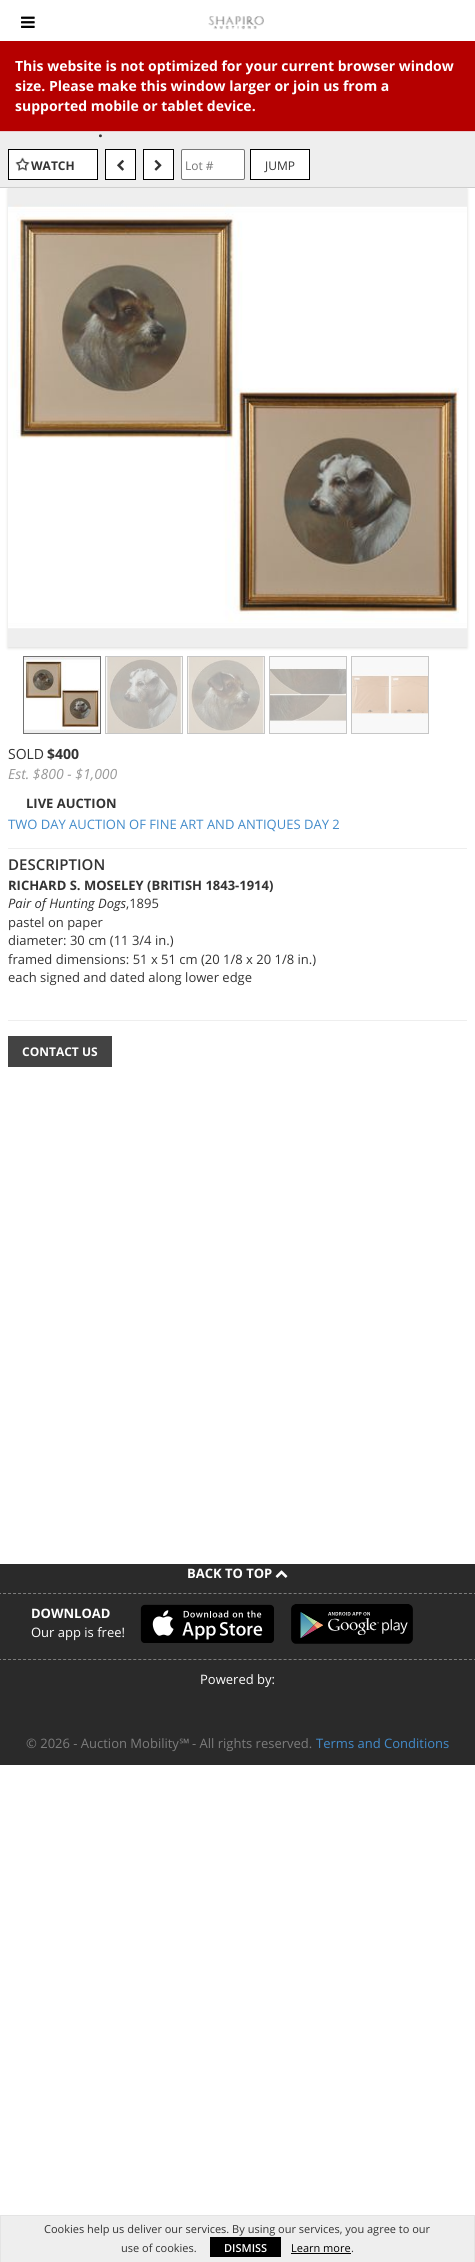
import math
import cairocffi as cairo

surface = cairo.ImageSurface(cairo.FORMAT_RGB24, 475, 2262)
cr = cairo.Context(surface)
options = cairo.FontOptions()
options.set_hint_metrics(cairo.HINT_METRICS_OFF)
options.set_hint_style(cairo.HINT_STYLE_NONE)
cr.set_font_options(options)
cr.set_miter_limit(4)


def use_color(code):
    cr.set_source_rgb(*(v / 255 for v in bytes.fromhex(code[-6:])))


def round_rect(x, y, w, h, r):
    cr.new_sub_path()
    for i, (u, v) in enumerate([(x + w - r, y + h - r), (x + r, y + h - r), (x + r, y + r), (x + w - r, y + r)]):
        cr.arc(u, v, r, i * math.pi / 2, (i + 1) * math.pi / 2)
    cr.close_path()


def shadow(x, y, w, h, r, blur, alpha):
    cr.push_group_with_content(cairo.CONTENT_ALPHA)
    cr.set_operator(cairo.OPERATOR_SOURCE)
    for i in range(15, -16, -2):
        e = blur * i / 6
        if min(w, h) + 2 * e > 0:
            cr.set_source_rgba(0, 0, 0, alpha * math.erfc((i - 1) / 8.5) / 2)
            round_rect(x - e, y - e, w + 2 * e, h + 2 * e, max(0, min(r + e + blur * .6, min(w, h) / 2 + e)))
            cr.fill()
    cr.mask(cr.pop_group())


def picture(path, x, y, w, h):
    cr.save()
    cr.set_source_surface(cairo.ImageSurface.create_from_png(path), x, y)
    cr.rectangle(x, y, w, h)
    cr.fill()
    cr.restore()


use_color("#ffffff")
cr.paint()
picture("img1.png", 21, 16, 14, 12)
picture("img2.png", 208, 16, 56, 14)
use_color("#b50000")
cr.rectangle(0, 41, 475, 90)
cr.fill()
use_color("#ebccd1")
cr.rectangle(0, 131, 475, 1)
cr.fill()
cr.select_font_face("Open Sans", cairo.FONT_SLANT_NORMAL, cairo.FONT_WEIGHT_BOLD)
cr.set_font_size(14)
use_color("#ffffff")
cr.move_to(15, 71)
cr.show_text("This website is not optimized for your current browser window")
cr.move_to(15, 91)
cr.show_text("size. Please make this window larger or join us from a")
cr.move_to(15, 111)
cr.show_text("supported mobile or tablet device.")
use_color("#eeeeee")
cr.rectangle(0, 132, 475, 55)
cr.fill()
use_color("#cccccc")
cr.rectangle(0, 187, 475, 1)
cr.fill()
cr.set_font_size(17)
use_color("#333333")
cr.move_to(98, 137)
cr.show_text(".")
use_color("#ffffff")
cr.rectangle(8.5, 149.5, 89, 30)
cr.fill_preserve()
use_color("#000000")
cr.set_line_width(1)
cr.stroke()
picture("img3.png", 15, 157, 15, 14)
cr.set_font_size(12)
use_color("#333333")
cr.move_to(31, 170)
cr.show_text("WATCH")
use_color("#ffffff")
cr.rectangle(105.5, 149.5, 30, 30)
cr.fill_preserve()
use_color("#000000")
cr.stroke()
picture("img4.png", 117, 159, 7, 12)
use_color("#ffffff")
cr.rectangle(143.5, 149.5, 30, 30)
cr.fill_preserve()
use_color("#000000")
cr.stroke()
picture("img5.png", 154, 159, 8, 12)
use_color("#ffffff")
round_rect(181.5, 149.5, 63, 30, 1.5)
cr.fill_preserve()
use_color("#767676")
cr.stroke()
cr.select_font_face("Open Sans")
use_color("#757575")
cr.move_to(185, 170)
cr.show_text("Lot #")
use_color("#ffffff")
cr.rectangle(250.5, 149.5, 59, 30)
cr.fill_preserve()
use_color("#000000")
cr.stroke()
use_color("#333333")
cr.move_to(265, 170)
cr.show_text("JUMP")
use_color("#dad9d7")
shadow(8, 189, 459, 459, 0, 1.5, 1)
picture("img6.png", 8, 188, 459, 459)
cr.rectangle(23.5, 656.5, 77, 77)
use_color("#717171")
cr.stroke()
cr.rectangle(105.5, 656.5, 77, 77)
use_color("#c6c6c6")
cr.stroke()
cr.rectangle(187.5, 656.5, 77, 77)
cr.stroke()
cr.rectangle(269.5, 656.5, 77, 77)
cr.stroke()
cr.rectangle(351.5, 656.5, 77, 77)
cr.stroke()
picture("img7.png", 24, 657, 76, 76)
picture("img8.png", 106, 657, 76, 76)
picture("img9.png", 188, 657, 76, 76)
picture("img10.png", 270, 657, 76, 76)
picture("img11.png", 352, 657, 76, 76)
cr.set_font_size(14)
use_color("#333333")
cr.move_to(8, 759)
cr.show_text("SOLD")
cr.select_font_face("Open Sans", cairo.FONT_SLANT_NORMAL, cairo.FONT_WEIGHT_BOLD)
cr.move_to(47, 759)
cr.show_text("$400")
cr.select_font_face("Open Sans", cairo.FONT_SLANT_ITALIC)
use_color("#999999")
cr.move_to(8, 779)
cr.show_text("Est. $800 - $1,000")
cr.select_font_face("Open Sans", cairo.FONT_SLANT_NORMAL, cairo.FONT_WEIGHT_BOLD)
cr.set_font_size(13)
use_color("#333333")
cr.move_to(26, 808)
cr.show_text("LIVE AUCTION")
cr.select_font_face("Open Sans")
use_color("#428bca")
cr.move_to(8, 829)
cr.show_text("TWO DAY AUCTION OF FINE ART AND ANTIQUES DAY 2")
use_color("#eeeeee")
cr.rectangle(8, 848, 459, 1)
cr.fill()
cr.select_font_face("Open Sans SemiBold")
cr.set_font_size(15)
use_color("#333333")
cr.move_to(8, 870)
cr.show_text("DESCRIPTION")
cr.select_font_face("Open Sans", cairo.FONT_SLANT_NORMAL, cairo.FONT_WEIGHT_BOLD)
cr.set_font_size(13)
cr.move_to(8, 890)
cr.show_text("RICHARD S. MOSELEY (BRITISH 1843-1914)")
cr.select_font_face("Open Sans", cairo.FONT_SLANT_ITALIC)
cr.move_to(8, 908)
cr.show_text("Pair of Hunting Dogs")
cr.select_font_face("Open Sans")
cr.move_to(126, 908)
cr.show_text(",1895")
cr.move_to(8, 927)
cr.show_text("pastel on paper")
cr.move_to(8, 945)
cr.show_text("diameter: 30 cm (11 3/4 in.)")
cr.move_to(8, 964)
cr.show_text("framed dimensions: 51 x 51 cm (20 1/8 x 20 1/8 in.)")
cr.move_to(8, 982)
cr.show_text("each signed and dated along lower edge")
use_color("#eeeeee")
cr.rectangle(8, 1020, 459, 1)
cr.fill()
use_color("#434343")
cr.rectangle(8, 1036, 104, 31)
cr.fill()
cr.select_font_face("Open Sans", cairo.FONT_SLANT_NORMAL, cairo.FONT_WEIGHT_BOLD)
cr.set_font_size(12)
use_color("#ffffff")
cr.move_to(22, 1056)
cr.show_text("CONTACT US")
use_color("#2a2a2a")
cr.rectangle(0, 1564, 475, 201)
cr.fill()
cr.new_path()
cr.move_to(-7, 1593.5)
cr.line_to(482, 1593.5)
use_color("#7c7c7c")
cr.set_dash([3, 2.01])
cr.stroke()
cr.set_font_size(13)
use_color("#ffffff")
cr.move_to(187, 1578)
cr.show_text("BACK TO TOP")
picture("img12.png", 275, 1570, 13, 8)
cr.new_path()
cr.move_to(-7, 1659.5)
cr.line_to(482, 1659.5)
use_color("#7c7c7c")
cr.stroke()
use_color("#ffffff")
cr.move_to(31, 1618)
cr.show_text("DOWNLOAD")
cr.select_font_face("Open Sans")
cr.move_to(31, 1637)
cr.show_text("Our app is free!")
picture("img13.png", 140, 1604, 134, 39)
picture("img14.png", 291, 1604, 122, 40)
cr.move_to(200, 1684)
cr.show_text("Powered by:")
use_color("#7c7c7c")
cr.move_to(26, 1748)
cr.show_text("© 2026 - Auction Mobility")
cr.select_font_face("Noto Sans")
cr.move_to(179, 1748)
cr.show_text("℠")
cr.select_font_face("Open Sans")
cr.move_to(192, 1748)
cr.show_text("- All rights reserved.")
use_color("#428bca")
cr.move_to(316, 1748)
cr.show_text("Terms and Conditions")
use_color("#eeeeee")
cr.rectangle(1, 2216, 473, 46)
cr.fill()
use_color("#e4e4e4")
cr.rectangle(0, 2215, 475, 1)
cr.fill()
cr.rectangle(474, 2215, 1, 47)
cr.fill()
cr.rectangle(0, 2215, 1, 47)
cr.fill()
cr.set_font_size(11)
use_color("#333333")
cr.move_to(44, 2233)
cr.show_text("Cookies help us deliver our services. By using our services, you agree to our")
cr.move_to(121, 2252)
cr.show_text("use of cookies.")
use_color("#000000")
cr.rectangle(210, 2237, 71, 20)
cr.fill()
cr.select_font_face("Open Sans SemiBold")
use_color("#ffffff")
cr.move_to(224, 2252)
cr.show_text("DISMISS")
cr.select_font_face("Open Sans")
use_color("#000000")
cr.move_to(291, 2252)
cr.show_text("Learn more")
cr.rectangle(291, 2253, 60, 1)
cr.fill()
use_color("#333333")
cr.move_to(351, 2252)
cr.show_text(".")
surface.write_to_png("result.png")
